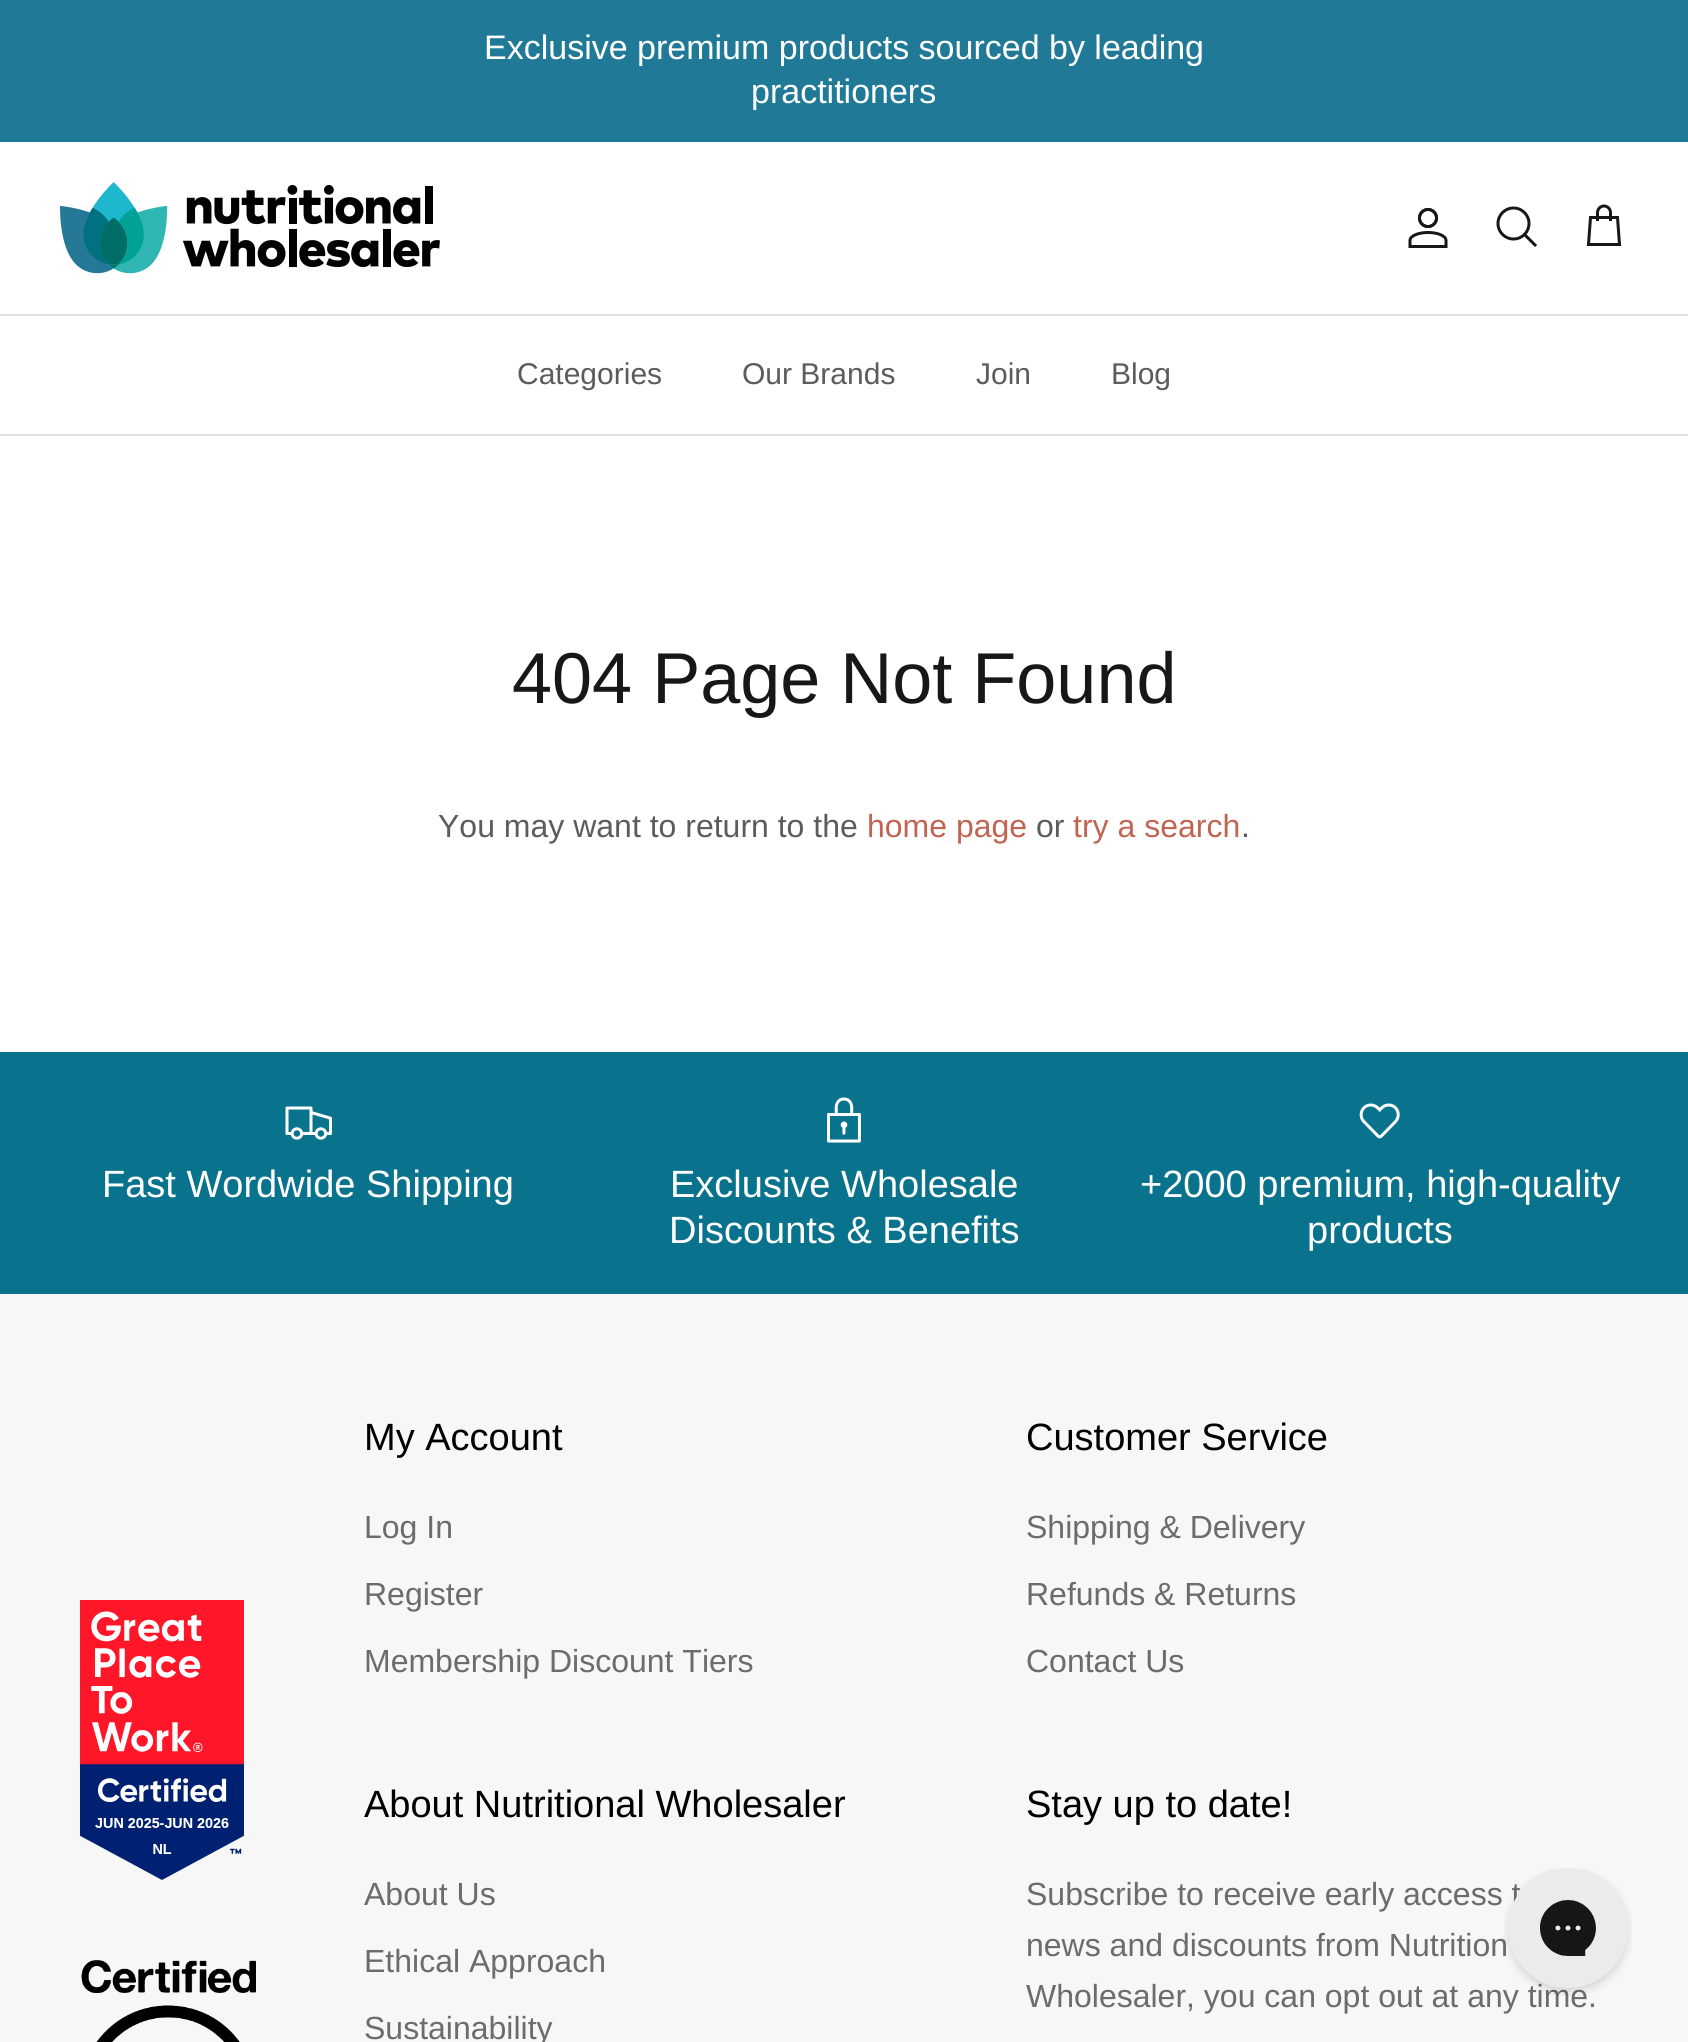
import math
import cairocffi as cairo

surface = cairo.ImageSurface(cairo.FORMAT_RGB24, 1688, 2042)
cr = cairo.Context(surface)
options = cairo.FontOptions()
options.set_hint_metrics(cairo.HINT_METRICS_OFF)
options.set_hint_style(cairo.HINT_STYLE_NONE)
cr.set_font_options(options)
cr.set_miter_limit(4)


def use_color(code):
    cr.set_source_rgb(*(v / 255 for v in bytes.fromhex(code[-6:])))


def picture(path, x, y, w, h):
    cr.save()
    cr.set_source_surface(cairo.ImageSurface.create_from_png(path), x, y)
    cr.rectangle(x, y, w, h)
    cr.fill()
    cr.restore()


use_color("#ffffff")
cr.paint()
use_color("#207a97")
cr.rectangle(0, 0, 1688, 142)
cr.fill()
cr.select_font_face("Arimo")
cr.set_font_size(34)
use_color("#ffffff")
cr.move_to(484, 59)
cr.show_text("Exclusive premium products sourced by leading")
cr.move_to(751, 103)
cr.show_text("practitioners")
use_color("#dfe3e8")
cr.rectangle(0, 314, 1688, 2)
cr.fill()
picture("img1.png", 60, 182, 380, 92)
picture("img2.png", 1408, 208, 40, 40)
cr.arc(1513.5, 223.5, 15.5, 0, 2 * math.pi)
use_color("#171717")
cr.set_line_width(3)
cr.stroke()
cr.new_path()
cr.move_to(1526, 236)
cr.line_to(1535, 245)
cr.set_line_cap(cairo.LINE_CAP_SQUARE)
cr.stroke()
cr.new_path()
cr.move_to(1610.5, 221)
cr.line_to(1610.5, 212.5)
cr.curve_to(1610.5, 209, 1607.5, 206, 1604, 206)
cr.curve_to(1600.5, 206, 1597.5, 209, 1597.5, 212.5)
cr.line_to(1597.5, 221)
cr.move_to(1590.5, 217.5)
cr.line_to(1617.5, 217.5)
cr.line_to(1619.5, 244.5)
cr.line_to(1588.5, 244.5)
cr.close_path()
cr.set_line_cap(cairo.LINE_CAP_BUTT)
cr.stroke()
use_color("#dfe3e8")
cr.rectangle(0, 434, 1688, 2)
cr.fill()
cr.set_font_size(30)
use_color("#5c5c5c")
cr.move_to(517, 384)
cr.show_text("Categories")
cr.move_to(742, 384)
cr.show_text("Our Brands")
cr.move_to(976, 384)
cr.show_text("Join")
cr.move_to(1111, 384)
cr.show_text("Blog")
cr.set_font_size(72)
use_color("#171717")
cr.move_to(512, 703)
cr.show_text("404 Page Not Found")
cr.set_font_size(32)
use_color("#5c5c5c")
cr.move_to(438, 837)
cr.show_text("You may want to return to the")
use_color("#c16452")
cr.move_to(867, 837)
cr.show_text("home page")
use_color("#5c5c5c")
cr.move_to(1036, 837)
cr.show_text("or")
use_color("#c16452")
cr.move_to(1073, 837)
cr.show_text("try a search")
use_color("#5c5c5c")
cr.move_to(1241, 837)
cr.show_text(".")
use_color("#f7f7f7")
cr.rectangle(0, 1294, 1688, 748)
cr.fill()
use_color("#09728c")
cr.rectangle(0, 1052, 1688, 242)
cr.fill()
picture("img3.png", 285, 1106, 47, 34)
cr.set_font_size(38)
use_color("#ffffff")
cr.move_to(102, 1197)
cr.show_text("Fast Wordwide Shipping")
picture("img4.png", 827, 1097, 34, 46)
cr.move_to(670, 1197)
cr.show_text("Exclusive Wholesale")
cr.move_to(669, 1243)
cr.show_text("Discounts & Benefits")
picture("img5.png", 1359, 1103, 41, 36)
cr.move_to(1140, 1197)
cr.show_text("+2000 premium, high-quality")
cr.move_to(1307, 1243)
cr.show_text("products")
picture("img6.png", 80, 1600, 164, 280)
picture("img7.png", 81, 1960, 175, 82)
use_color("#000000")
cr.move_to(364, 1450)
cr.show_text("My Account")
cr.set_font_size(32)
use_color("#6c6c6c")
cr.move_to(364, 1538)
cr.show_text("Log In")
cr.move_to(364, 1605)
cr.show_text("Register")
cr.move_to(364, 1672)
cr.show_text("Membership Discount Tiers")
cr.set_font_size(38)
use_color("#000000")
cr.move_to(1026, 1450)
cr.show_text("Customer Service")
cr.set_font_size(32)
use_color("#6c6c6c")
cr.move_to(1026, 1538)
cr.show_text("Shipping & Delivery")
cr.move_to(1026, 1605)
cr.show_text("Refunds & Returns")
cr.move_to(1026, 1672)
cr.show_text("Contact Us")
cr.set_font_size(38)
use_color("#000000")
cr.move_to(364, 1817)
cr.show_text("About Nutritional Wholesaler")
cr.set_font_size(32)
use_color("#6c6c6c")
cr.move_to(364, 1905)
cr.show_text("About Us")
cr.move_to(364, 1972)
cr.show_text("Ethical Approach")
cr.move_to(364, 2039)
cr.show_text("Sustainability")
cr.set_font_size(38)
use_color("#000000")
cr.move_to(1026, 1817)
cr.show_text("Stay up to date!")
cr.set_font_size(32)
use_color("#6c6c6c")
cr.move_to(1026, 1905)
cr.show_text("Subscribe to receive early access t")
cr.move_to(1026, 1956)
cr.show_text("news and discounts from Nutrition")
cr.move_to(1026, 2007)
cr.show_text("Wholesaler, you can opt out at any time.")
picture("img8.png", 1504, 1868, 128, 128)
surface.write_to_png("result.png")
